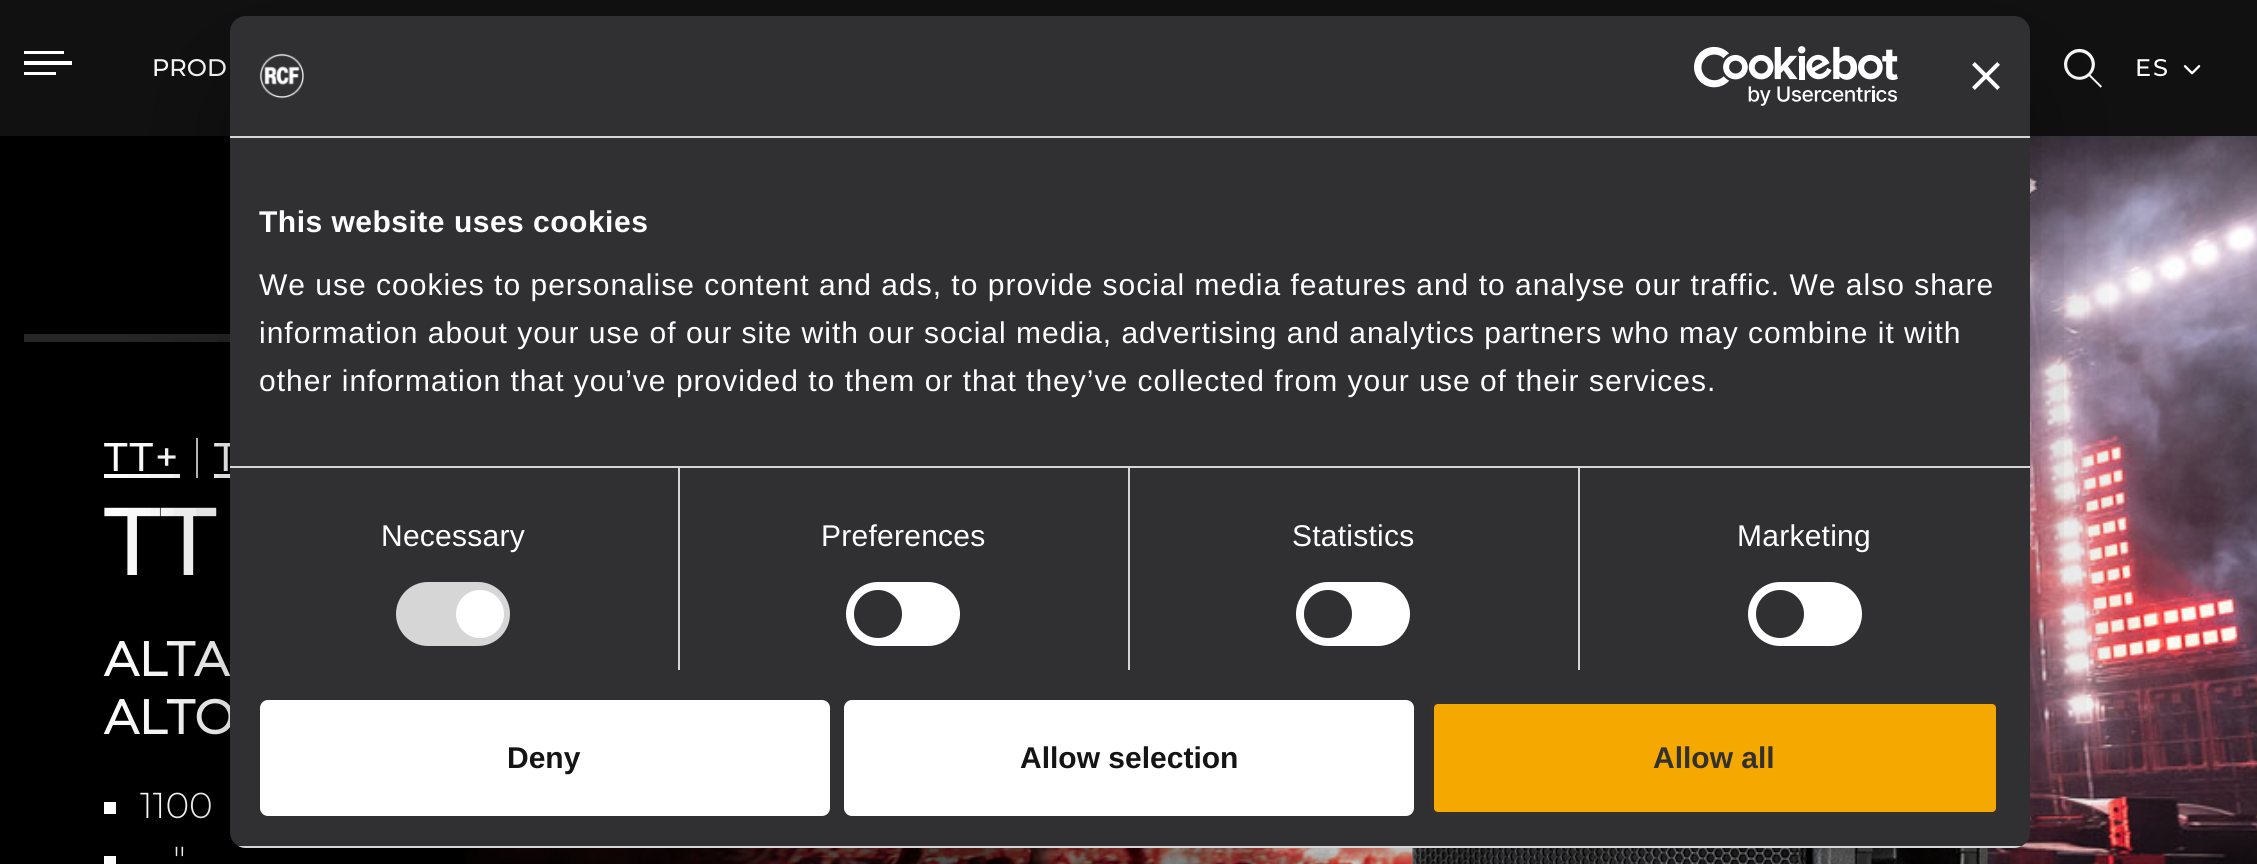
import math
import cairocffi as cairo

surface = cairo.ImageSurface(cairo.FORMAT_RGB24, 2257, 864)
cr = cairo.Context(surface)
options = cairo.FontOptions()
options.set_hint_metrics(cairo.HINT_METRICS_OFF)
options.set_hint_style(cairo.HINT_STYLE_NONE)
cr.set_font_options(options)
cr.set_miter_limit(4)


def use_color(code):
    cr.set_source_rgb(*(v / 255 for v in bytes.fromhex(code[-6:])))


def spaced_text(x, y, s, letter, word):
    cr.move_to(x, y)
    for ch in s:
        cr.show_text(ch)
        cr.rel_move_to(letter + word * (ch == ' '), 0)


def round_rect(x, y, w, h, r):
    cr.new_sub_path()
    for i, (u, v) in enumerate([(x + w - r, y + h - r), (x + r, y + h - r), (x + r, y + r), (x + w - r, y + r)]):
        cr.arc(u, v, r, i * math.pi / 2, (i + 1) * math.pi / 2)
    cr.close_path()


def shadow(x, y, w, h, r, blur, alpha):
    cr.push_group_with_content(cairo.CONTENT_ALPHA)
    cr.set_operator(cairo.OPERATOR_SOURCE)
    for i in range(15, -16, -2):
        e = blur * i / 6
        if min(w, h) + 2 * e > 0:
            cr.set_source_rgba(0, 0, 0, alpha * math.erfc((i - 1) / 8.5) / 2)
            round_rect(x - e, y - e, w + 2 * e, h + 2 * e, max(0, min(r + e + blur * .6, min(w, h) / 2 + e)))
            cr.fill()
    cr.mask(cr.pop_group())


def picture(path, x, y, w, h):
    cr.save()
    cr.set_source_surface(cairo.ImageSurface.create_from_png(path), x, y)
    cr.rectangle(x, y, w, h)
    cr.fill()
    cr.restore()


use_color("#000000")
cr.paint()
use_color("#111111")
cr.rectangle(0, 0, 2257, 136)
cr.fill()
use_color("#ffffff")
cr.new_path()
cr.move_to(24, 51)
cr.line_to(64, 51)
cr.line_to(64, 54)
cr.line_to(24, 54)
cr.close_path()
cr.move_to(24, 72)
cr.line_to(56, 72)
cr.line_to(56, 75)
cr.line_to(24, 75)
cr.close_path()
cr.move_to(24, 61)
cr.line_to(72, 61)
cr.line_to(72, 65)
cr.line_to(24, 65)
cr.close_path()
cr.fill()
cr.select_font_face("Montserrat Medium")
cr.set_font_size(24)
cr.move_to(152, 76)
cr.show_text("PROD")
picture("img1.png", 2064, 48, 38, 40)
spaced_text(2135, 76, "ES", 2, 0)
picture("img2.png", 2183, 65, 18, 10)
picture("img3.png", 399, 136, 1858, 728)
use_color("#262626")
cr.rectangle(24, 334, 206, 8)
cr.fill()
use_color("#c9c9c9")
cr.rectangle(196, 438, 2, 40)
cr.fill()
cr.set_font_size(40)
use_color("#ffffff")
spaced_text(104, 471, "TT+", 2, 0)
cr.rectangle(104, 474, 76, 4)
cr.fill()
spaced_text(214, 471, "T", 2, 0)
cr.rectangle(214, 474, 16, 4)
cr.fill()
cr.set_font_size(96)
cr.move_to(104, 575)
cr.show_text("TT")
cr.select_font_face("Montserrat", cairo.FONT_SLANT_NORMAL, cairo.FONT_WEIGHT_BOLD)
cr.set_font_size(48)
cr.move_to(104, 676)
cr.show_text("ALTA")
cr.move_to(104, 734)
cr.show_text("ALTO")
cr.rectangle(104, 802, 12, 12)
cr.fill()
cr.select_font_face("Montserrat Light")
cr.set_font_size(36)
cr.move_to(140, 818)
cr.show_text("1100")
cr.move_to(173, 872)
cr.show_text("\"")
cr.rectangle(104, 856, 12, 8)
cr.fill()
picture("img4.png", 1412, 848, 576, 16)
use_color("#000000")
shadow(230, 80, 1800, 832, 16, 68, 0.3)
use_color("#303033")
round_rect(230, 16, 1800, 832, 16)
cr.fill()
use_color("#d6d6d6")
cr.rectangle(230, 136, 1800, 2)
cr.fill()
picture("img5.png", 259, 53, 45, 46)
picture("img6.png", 1694, 46, 204, 60)
picture("img7.png", 1972, 62, 28, 28)
cr.rectangle(230, 466, 1800, 2)
cr.fill()
cr.select_font_face("Liberation Sans", cairo.FONT_SLANT_NORMAL, cairo.FONT_WEIGHT_BOLD)
cr.set_font_size(30)
use_color("#ffffff")
spaced_text(259, 232, "This website uses cookies", 0.5, 0)
cr.select_font_face("Liberation Sans")
spaced_text(259, 295, "We use cookies to personalise content and ads, to provide social media features and to analyse our traffic. We also share", 1, 0)
spaced_text(259, 343, "information about your use of our site with our social media, advertising and analytics partners who may combine it with", 1, 0)
spaced_text(259, 391, "other information that you’ve provided to them or that they’ve collected from your use of their services.", 1, 0)
use_color("#d6d6d6")
cr.rectangle(678, 468, 2, 202)
cr.fill()
use_color("#ffffff")
spaced_text(381, 546, "Necessary", 0.25, 0)
use_color("#d6d6d6")
round_rect(396, 582, 114, 64, 32)
cr.fill()
use_color("#ffffff")
cr.arc(480, 614, 24, 0, 2 * math.pi)
cr.fill()
use_color("#d6d6d6")
cr.rectangle(1128, 468, 2, 202)
cr.fill()
use_color("#ffffff")
spaced_text(821, 546, "Preferences", 0.25, 0)
round_rect(846, 582, 114, 64, 32)
cr.fill()
use_color("#303033")
cr.arc(878, 614, 24, 0, 2 * math.pi)
cr.fill()
use_color("#d6d6d6")
cr.rectangle(1578, 468, 2, 202)
cr.fill()
use_color("#ffffff")
spaced_text(1292, 546, "Statistics", 0.25, 0)
round_rect(1296, 582, 114, 64, 32)
cr.fill()
use_color("#303033")
cr.arc(1328, 614, 24, 0, 2 * math.pi)
cr.fill()
use_color("#ffffff")
spaced_text(1737, 546, "Marketing", 0.25, 0)
round_rect(1748, 582, 114, 64, 32)
cr.fill()
use_color("#303033")
cr.arc(1780, 614, 24, 0, 2 * math.pi)
cr.fill()
cr.save()
round_rect(230, 16, 1800, 832, 16)
cr.clip()
use_color("#d6d6d6")
cr.rectangle(230, 846, 1800, 2)
cr.fill()
cr.restore()
use_color("#ffffff")
round_rect(262, 702, 566, 112, 6)
cr.fill_preserve()
cr.set_line_width(4)
cr.stroke()
cr.select_font_face("Liberation Sans", cairo.FONT_SLANT_NORMAL, cairo.FONT_WEIGHT_BOLD)
use_color("#141414")
cr.move_to(507, 768)
cr.show_text("Deny")
use_color("#ffffff")
round_rect(846, 702, 566, 112, 6)
cr.fill_preserve()
cr.stroke()
use_color("#141414")
cr.move_to(1020, 768)
cr.show_text("Allow selection")
use_color("#f5a800")
round_rect(1432, 702, 566, 112, 6)
cr.fill_preserve()
use_color("#333030")
cr.stroke()
cr.move_to(1653, 768)
cr.show_text("Allow all")
surface.write_to_png("result.png")
